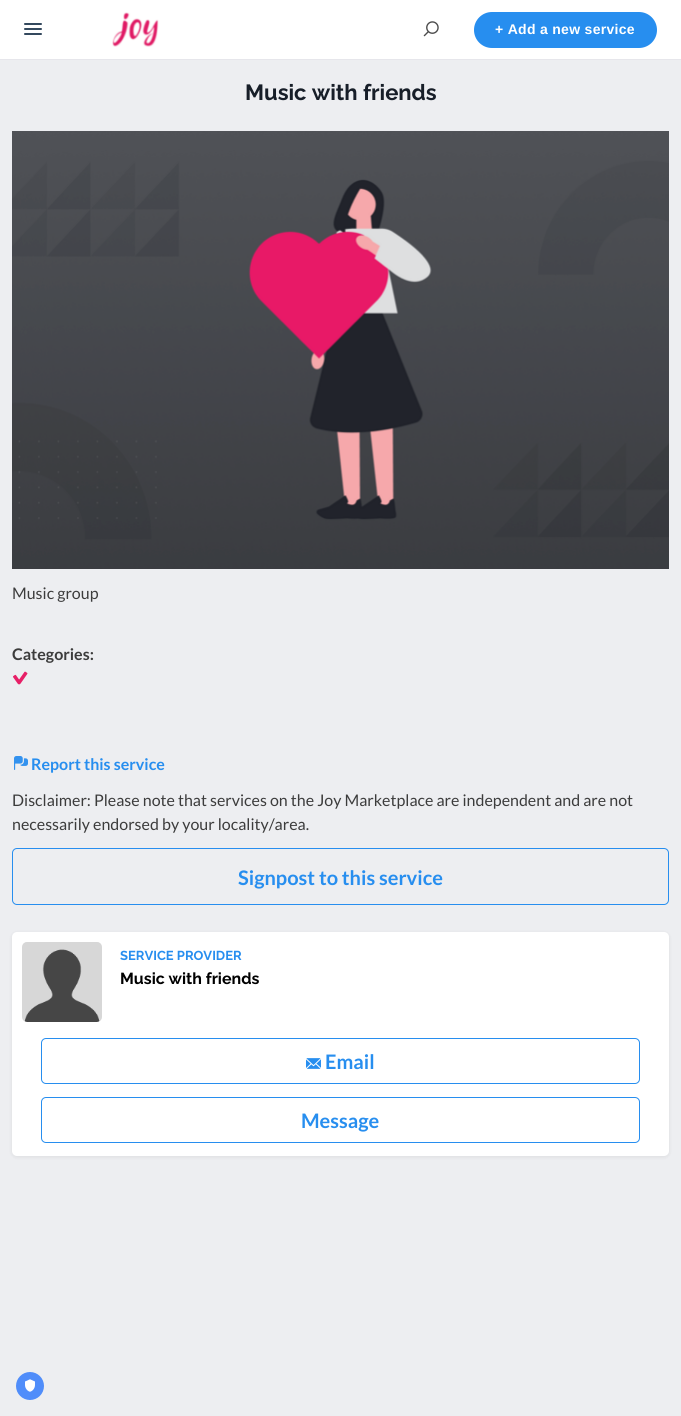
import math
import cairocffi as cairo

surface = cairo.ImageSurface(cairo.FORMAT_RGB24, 681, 1416)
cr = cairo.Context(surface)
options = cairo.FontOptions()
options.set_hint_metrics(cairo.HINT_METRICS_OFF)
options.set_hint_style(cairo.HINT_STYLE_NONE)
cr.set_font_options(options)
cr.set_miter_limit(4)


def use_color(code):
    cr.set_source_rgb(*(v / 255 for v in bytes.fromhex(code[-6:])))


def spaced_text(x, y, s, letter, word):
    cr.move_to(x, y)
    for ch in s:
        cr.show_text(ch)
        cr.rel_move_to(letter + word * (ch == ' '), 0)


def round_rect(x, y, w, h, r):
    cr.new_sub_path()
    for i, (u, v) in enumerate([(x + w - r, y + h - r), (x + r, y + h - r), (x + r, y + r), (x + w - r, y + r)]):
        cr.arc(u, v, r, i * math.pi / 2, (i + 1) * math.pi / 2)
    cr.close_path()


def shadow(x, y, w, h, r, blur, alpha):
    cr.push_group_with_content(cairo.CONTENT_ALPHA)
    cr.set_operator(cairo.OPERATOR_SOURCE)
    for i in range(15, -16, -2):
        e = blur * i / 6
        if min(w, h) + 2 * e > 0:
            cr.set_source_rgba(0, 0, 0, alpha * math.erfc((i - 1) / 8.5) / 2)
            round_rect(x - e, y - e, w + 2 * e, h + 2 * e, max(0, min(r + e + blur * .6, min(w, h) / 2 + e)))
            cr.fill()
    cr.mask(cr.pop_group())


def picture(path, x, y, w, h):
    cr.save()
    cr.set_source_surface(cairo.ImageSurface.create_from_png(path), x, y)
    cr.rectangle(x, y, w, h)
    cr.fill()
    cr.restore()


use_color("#edeef1")
cr.paint()
use_color("#ffffff")
cr.rectangle(0, 0, 681, 59)
cr.fill()
use_color("#e6e6eb")
cr.rectangle(0, 59, 681, 1)
cr.fill()
use_color("#34495e")
round_rect(24, 23, 18, 2, 1)
cr.fill()
round_rect(24, 28, 18, 2, 1)
cr.fill()
round_rect(24, 33, 18, 2, 1)
cr.fill()
picture("img1.png", 112, 12, 47, 35)
picture("img2.png", 423, 21, 16, 16)
use_color("#278eef")
round_rect(474, 12, 183, 36, 18)
cr.fill()
cr.select_font_face("Liberation Sans", cairo.FONT_SLANT_NORMAL, cairo.FONT_WEIGHT_BOLD)
cr.set_font_size(14)
use_color("#ffffff")
spaced_text(495, 34, "+ Add a new service", 0.3, 0)
cr.select_font_face("Raleway Thin")
cr.set_font_size(22)
use_color("#171e28")
cr.move_to(245, 100)
cr.show_text("Music with friends")
picture("img3.png", 12, 131, 657, 438)
cr.select_font_face("Lato")
cr.set_font_size(16)
use_color("#3c3c3c")
cr.move_to(12, 599)
cr.show_text("Music group")
cr.select_font_face("Lato", cairo.FONT_SLANT_NORMAL, cairo.FONT_WEIGHT_BOLD)
cr.move_to(12, 660)
cr.show_text("Categories:")
picture("img4.png", 13, 671, 15, 14)
picture("img5.png", 14, 756, 14, 14)
use_color("#278eef")
cr.move_to(31, 770)
cr.show_text("Report this service")
cr.select_font_face("Lato")
use_color("#3c3c3c")
cr.move_to(12, 806)
cr.show_text("Disclaimer: Please note that services on the Joy Marketplace are independent and are not")
cr.move_to(12, 830)
cr.show_text("necessarily endorsed by your locality/area.")
round_rect(12.5, 848.5, 656, 56, 4.5)
use_color("#278eef")
cr.set_line_width(1)
cr.stroke()
cr.select_font_face("Lato", cairo.FONT_SLANT_NORMAL, cairo.FONT_WEIGHT_BOLD)
cr.set_font_size(20)
cr.move_to(238, 885)
cr.show_text("Signpost to this service")
use_color("#000000")
shadow(12, 933, 657, 224, 5, 2, 0.08)
use_color("#ffffff")
round_rect(12, 932, 657, 224, 5)
cr.fill()
picture("img6.png", 22, 942, 80, 80)
cr.select_font_face("Raleway Thin")
cr.set_font_size(13)
use_color("#278eef")
cr.move_to(120, 960)
cr.show_text("SERVICE PROVIDER")
cr.set_font_size(16)
use_color("#000000")
cr.move_to(120, 984)
cr.show_text("Music with friends")
round_rect(41.5, 1038.5, 598, 45, 4.5)
use_color("#278eef")
cr.stroke()
picture("img7.png", 306, 1058, 15, 11)
cr.select_font_face("Lato", cairo.FONT_SLANT_NORMAL, cairo.FONT_WEIGHT_BOLD)
cr.set_font_size(20)
cr.move_to(325, 1069)
cr.show_text("Email")
round_rect(41.5, 1097.5, 598, 45, 4.5)
cr.stroke()
cr.move_to(301, 1128)
cr.show_text("Message")
use_color("#508dfa")
cr.new_path()
cr.arc(30, 1386, 14, 0, 2 * math.pi)
cr.fill()
picture("img8.png", 25, 1379, 10, 13)
surface.write_to_png("result.png")
